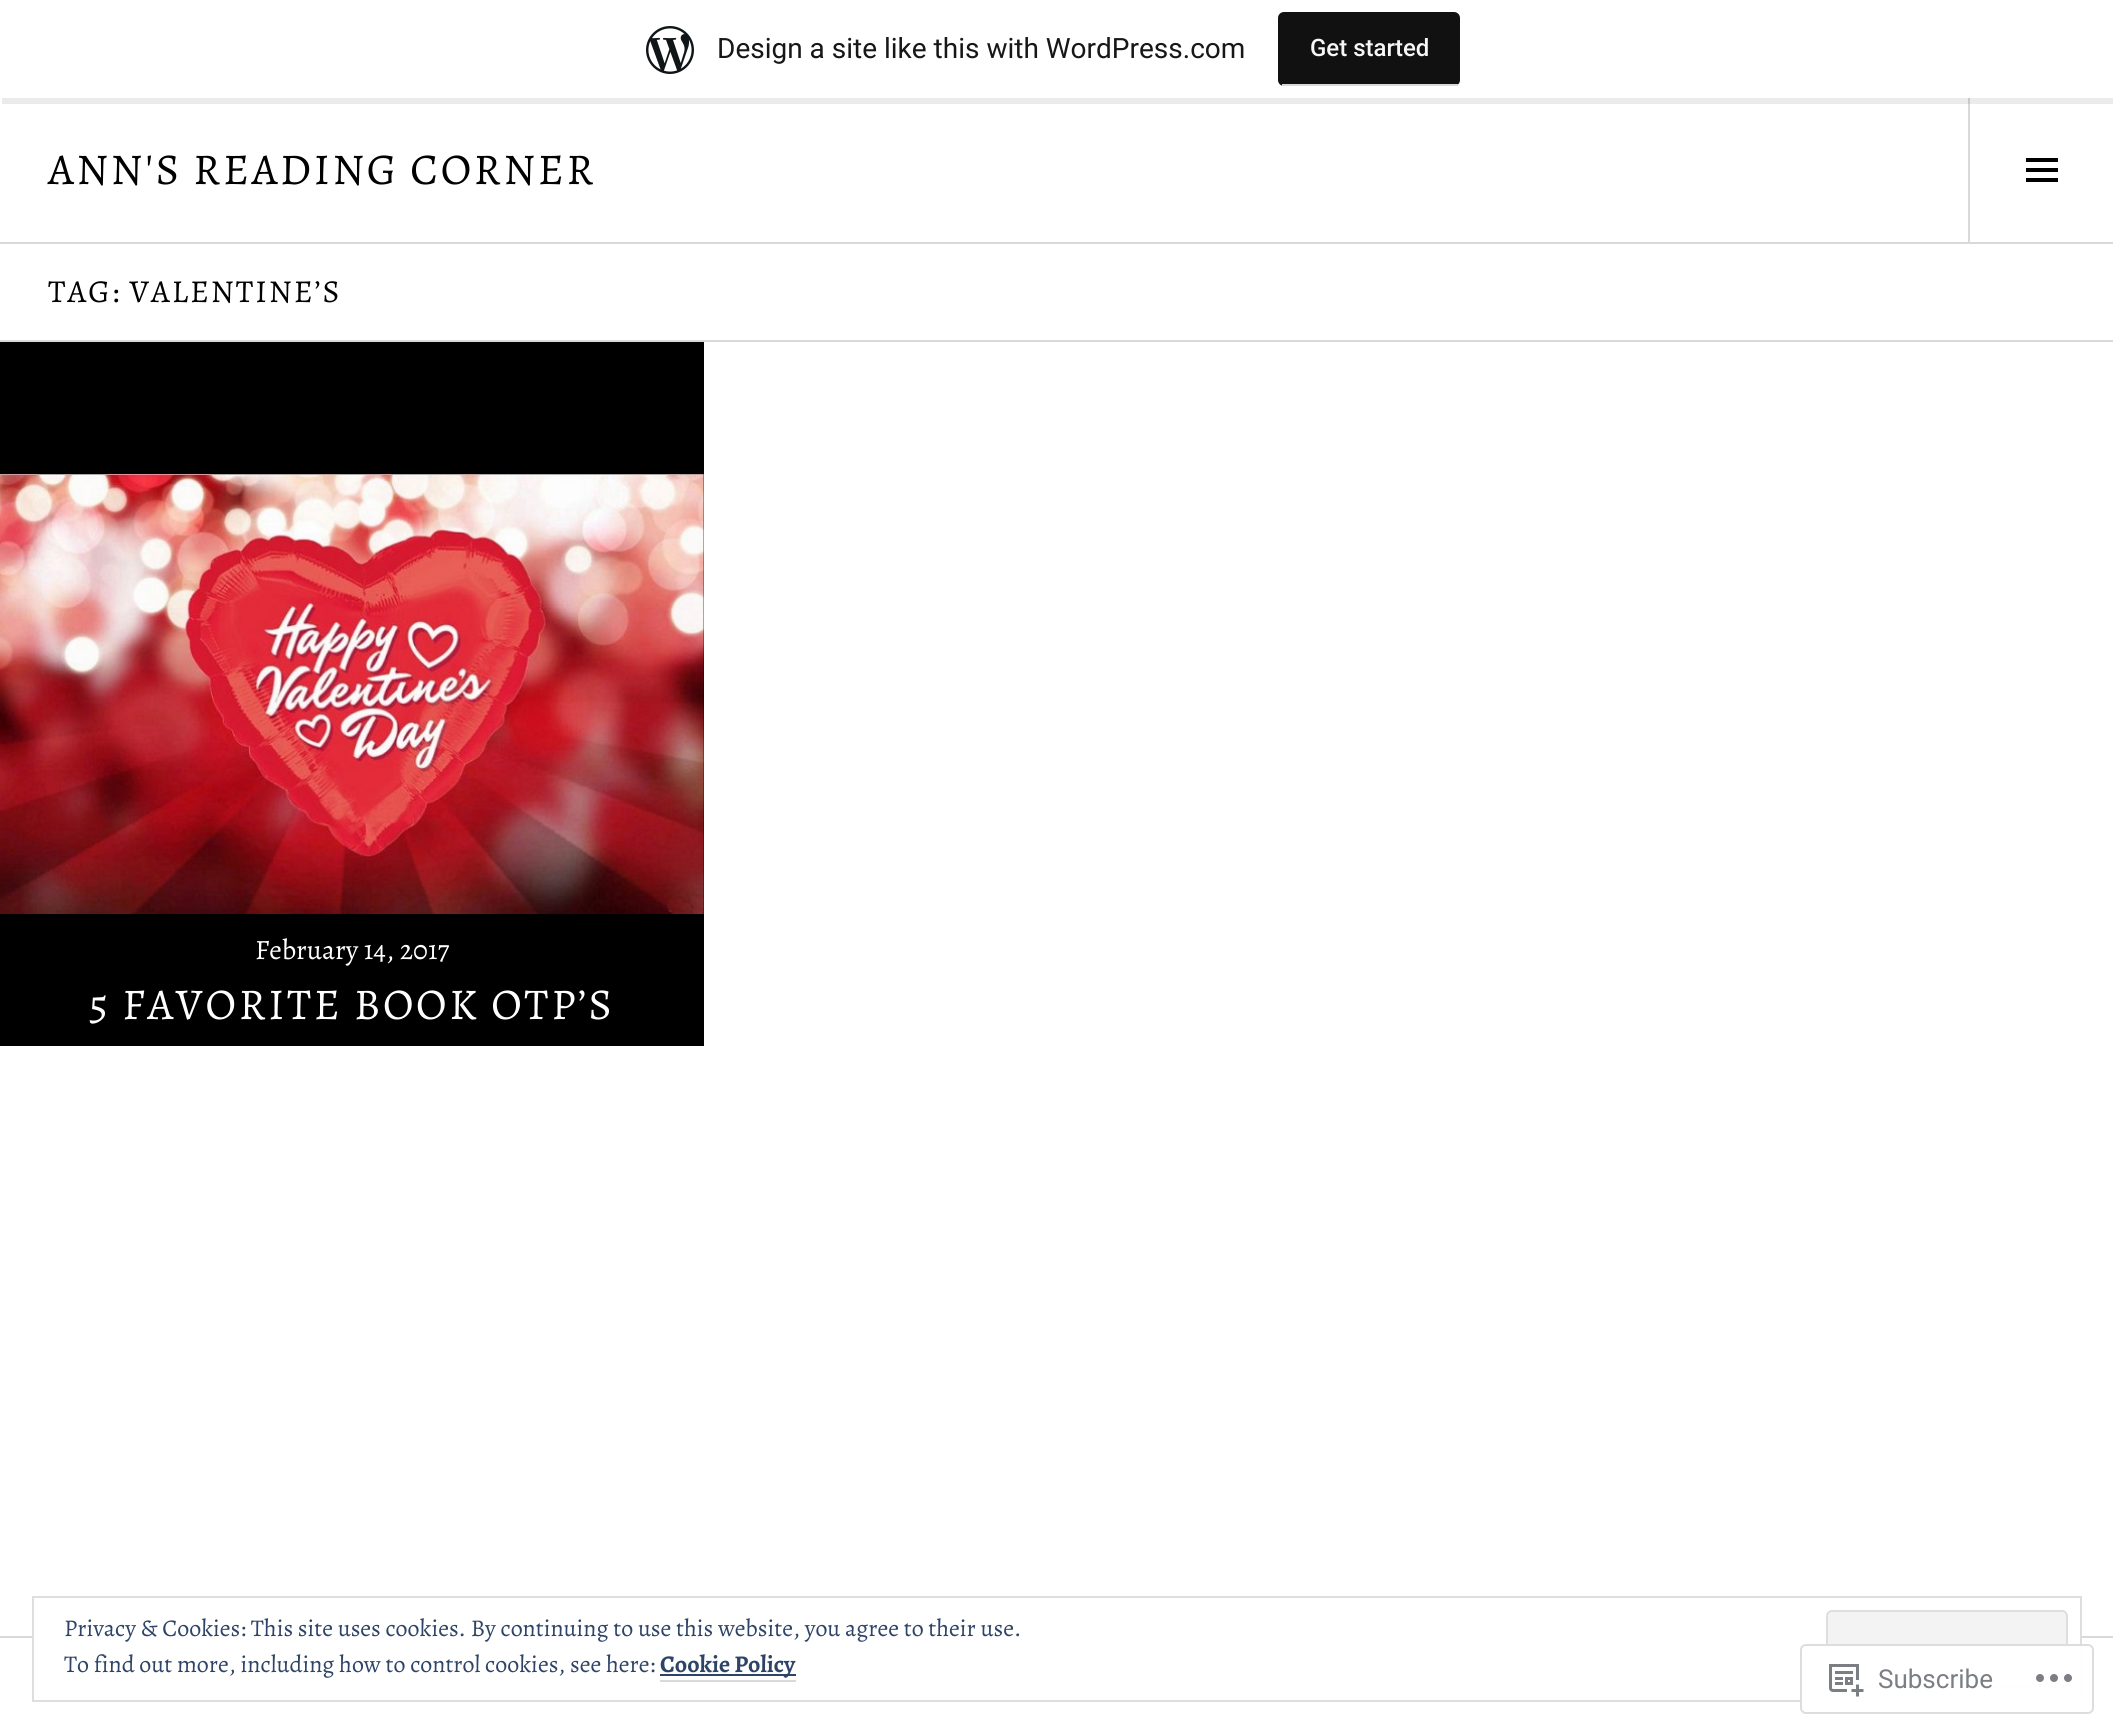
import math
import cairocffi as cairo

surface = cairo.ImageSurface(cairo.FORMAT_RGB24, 2113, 1734)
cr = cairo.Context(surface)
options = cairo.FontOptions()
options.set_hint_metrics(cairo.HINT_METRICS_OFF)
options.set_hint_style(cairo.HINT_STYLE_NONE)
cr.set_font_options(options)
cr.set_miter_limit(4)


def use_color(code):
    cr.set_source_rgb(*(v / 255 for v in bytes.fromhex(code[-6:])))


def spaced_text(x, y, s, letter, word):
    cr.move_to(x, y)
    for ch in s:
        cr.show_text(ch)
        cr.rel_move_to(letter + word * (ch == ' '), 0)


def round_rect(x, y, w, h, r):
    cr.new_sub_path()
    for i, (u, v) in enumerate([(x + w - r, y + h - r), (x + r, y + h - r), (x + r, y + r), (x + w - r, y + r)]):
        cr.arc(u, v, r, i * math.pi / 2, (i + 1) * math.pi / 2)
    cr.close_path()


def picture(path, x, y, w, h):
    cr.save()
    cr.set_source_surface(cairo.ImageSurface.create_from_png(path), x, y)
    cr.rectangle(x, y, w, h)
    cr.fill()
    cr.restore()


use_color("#ffffff")
cr.paint()
use_color("#d9d9d9")
cr.rectangle(1968, 98, 2, 144)
cr.fill()
cr.set_source_rgba(0, 0, 0, 0.08)
cr.new_path()
cr.move_to(2, 98)
cr.line_to(2, 104)
cr.line_to(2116, 104)
cr.line_to(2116, 6)
cr.line_to(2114, 6)
cr.line_to(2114, 98)
cr.close_path()
cr.fill()
picture("img1.png", 646, 26, 48, 48)
cr.select_font_face("Roboto")
cr.set_font_size(28)
use_color("#171717")
cr.move_to(717, 58)
cr.show_text("Design a site like this with WordPress.com")
use_color("#111111")
round_rect(1278, 12, 182, 74, 6)
cr.fill()
use_color("#d9d9d9")
cr.rectangle(1282, 84, 176, 2)
cr.fill()
cr.select_font_face("Roboto Medium")
cr.set_font_size(24)
use_color("#f6f7f7")
cr.move_to(1310, 56)
cr.show_text("Get started")
use_color("#d9d9d9")
cr.rectangle(0, 242, 2113, 2)
cr.fill()
cr.select_font_face("Alegreya")
cr.set_font_size(44)
use_color("#000000")
spaced_text(48, 184, "ANN'S READING CORNER", 2.75, 0)
picture("img2.png", 2026, 158, 32, 24)
use_color("#d9d9d9")
cr.rectangle(0, 340, 2113, 2)
cr.fill()
cr.set_font_size(32)
use_color("#000000")
spaced_text(48, 302, "TAG: VALENTINE’S", 2, 0)
cr.rectangle(0, 342, 704, 704)
cr.fill()
picture("img3.png", 0, 474, 704, 441)
cr.set_font_size(28)
use_color("#ffffff")
cr.move_to(255, 959)
cr.show_text("February 14, 2017")
cr.set_font_size(44)
spaced_text(89, 1019, "5 FAVORITE BOOK OTP’S", 2.75, 0)
use_color("#d9d9d9")
cr.rectangle(0, 1636, 2113, 2)
cr.fill()
use_color("#ffffff")
cr.rectangle(34, 1636, 2046, 2)
cr.fill()
cr.rectangle(33, 1597, 2048, 104)
use_color("#dedede")
cr.stroke()
cr.set_font_size(24)
use_color("#2e4467")
cr.move_to(64, 1636)
cr.show_text("Privacy & Cookies: This site uses cookies. By continuing to use this website, you agree to their use.")
use_color("#f3f3f3")
round_rect(1827, 1611, 240, 76, 5)
cr.fill_preserve()
use_color("#dedede")
cr.stroke()
use_color("#2e4467")
cr.move_to(64, 1672)
cr.show_text("To find out more, including how to control cookies, see here:")
cr.rectangle(660, 1674, 136, 2)
cr.fill()
cr.select_font_face("Alegreya", cairo.FONT_SLANT_NORMAL, cairo.FONT_WEIGHT_BOLD)
cr.move_to(660, 1672)
cr.show_text("Cookie Policy")
use_color("#d9d9d9")
cr.rectangle(660, 1680, 136, 2)
cr.fill()
cr.set_source_rgba(1, 1, 1, 0.98)
round_rect(1800, 1644, 294, 70, 6)
cr.fill()
round_rect(1801, 1645, 292, 68, 5)
cr.set_source_rgba(0.863, 0.863, 0.871, 0.98)
cr.stroke()
picture("img4.png", 1829, 1664, 35, 33)
cr.select_font_face("Roboto")
cr.set_font_size(26)
use_color("#7b7f84")
cr.move_to(1878, 1688)
cr.show_text("Subscribe")
picture("img5.png", 2036, 1674, 36, 8)
surface.write_to_png("result.png")
